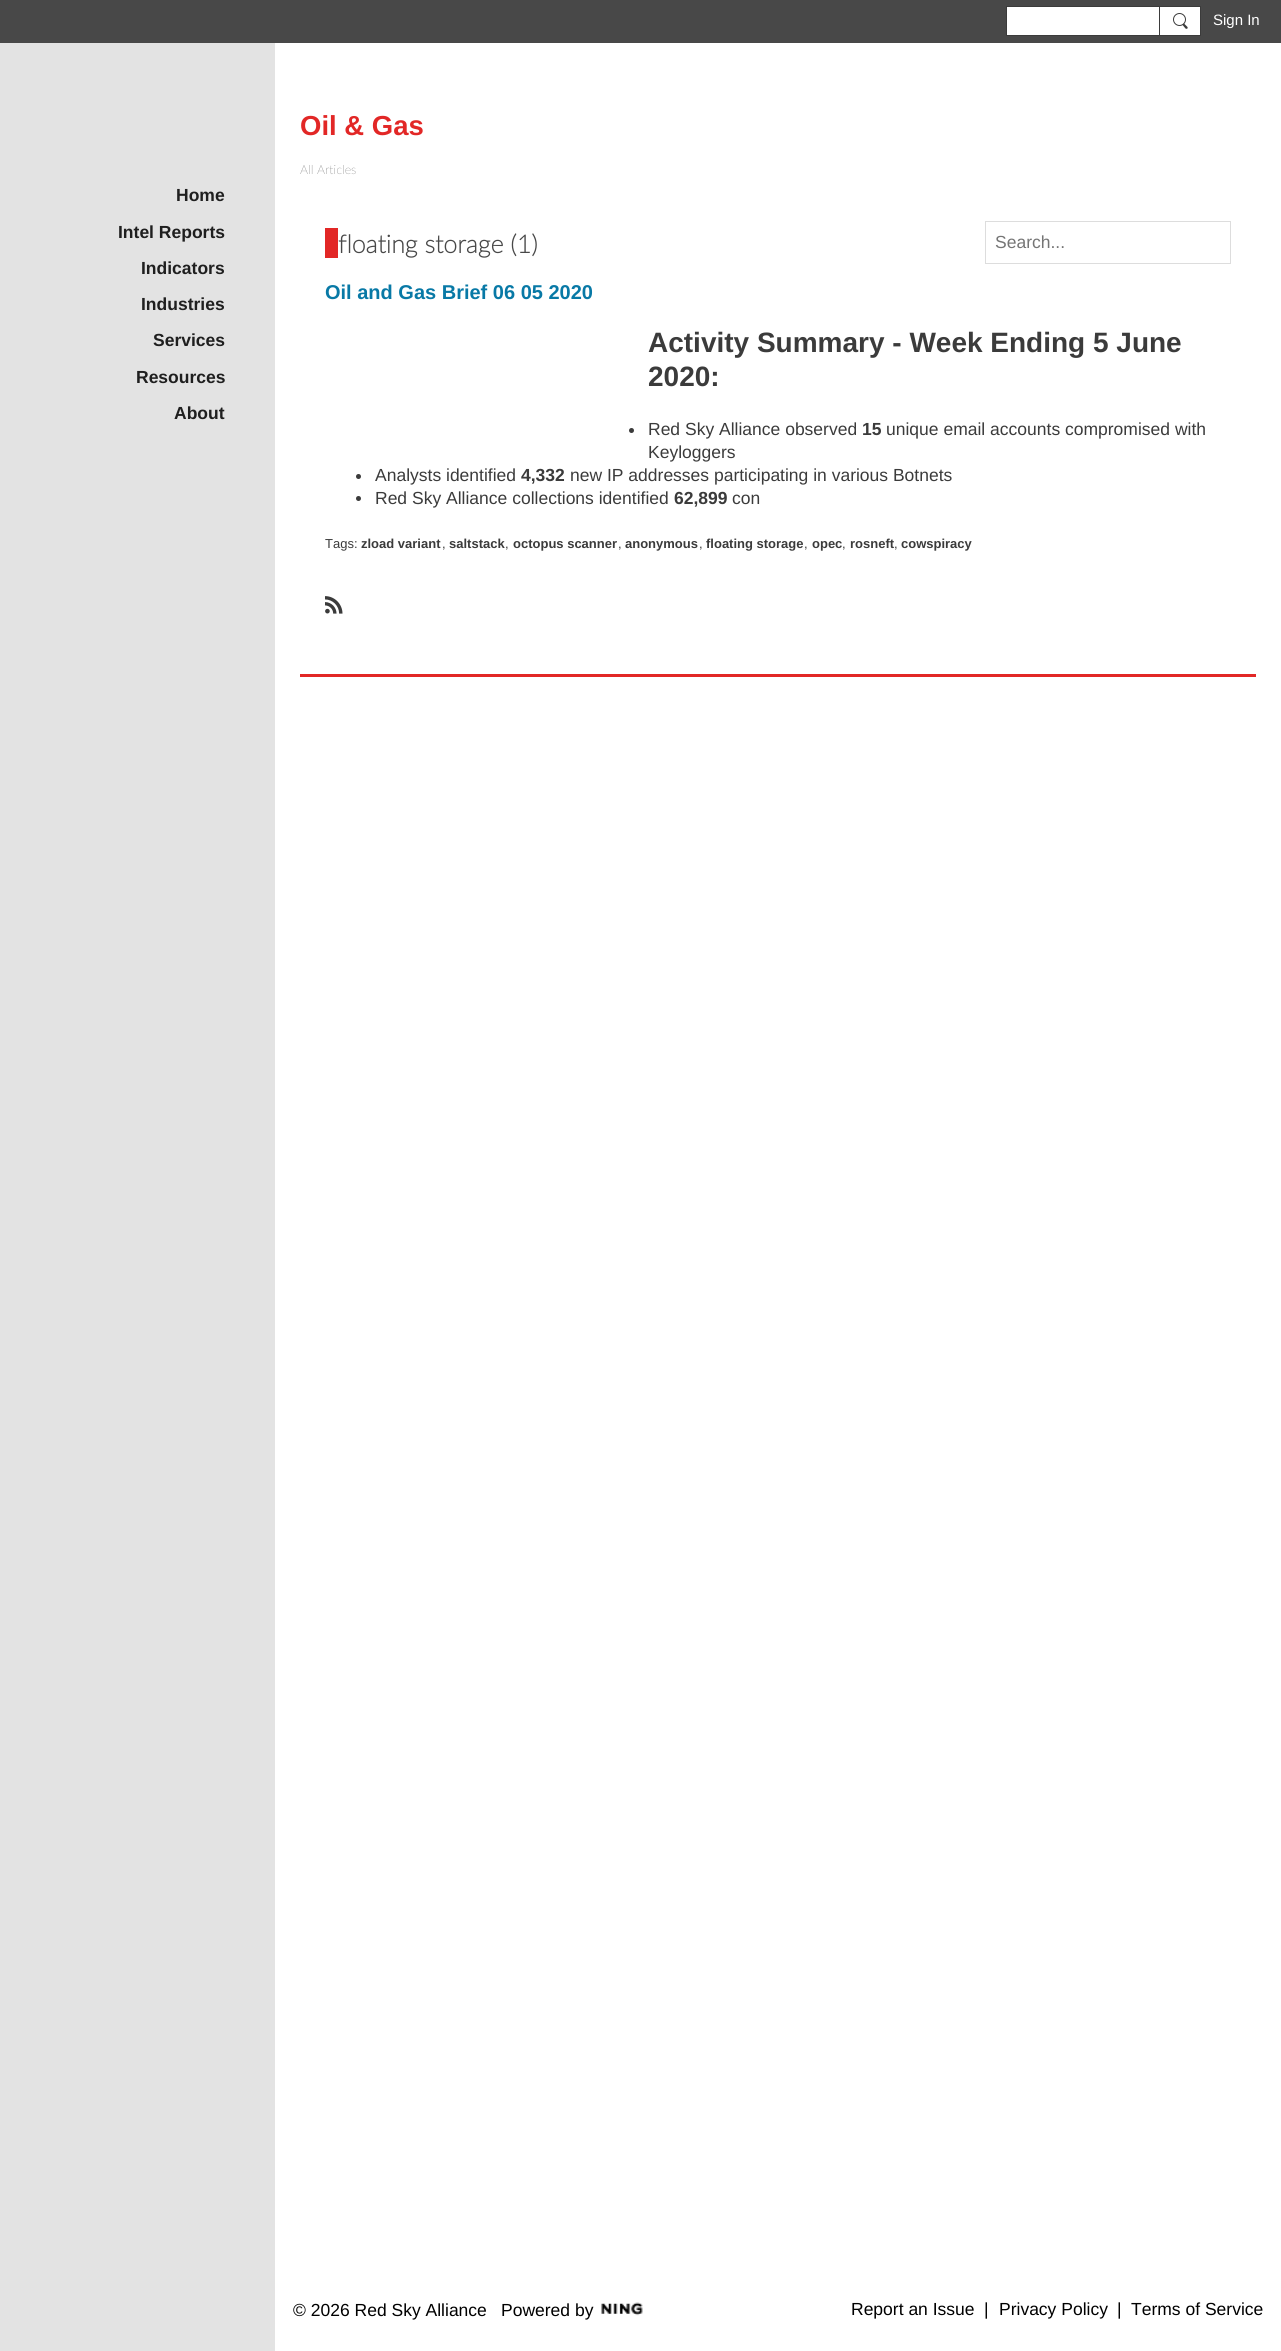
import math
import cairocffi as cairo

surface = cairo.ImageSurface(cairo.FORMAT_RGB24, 1281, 2351)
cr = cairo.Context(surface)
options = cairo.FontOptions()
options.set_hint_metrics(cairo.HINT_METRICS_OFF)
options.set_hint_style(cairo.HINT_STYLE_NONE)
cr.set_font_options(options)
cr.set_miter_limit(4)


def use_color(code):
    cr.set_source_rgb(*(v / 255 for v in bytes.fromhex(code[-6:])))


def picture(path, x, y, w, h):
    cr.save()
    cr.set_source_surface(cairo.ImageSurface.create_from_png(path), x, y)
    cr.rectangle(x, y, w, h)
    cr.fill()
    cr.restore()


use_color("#ffffff")
cr.paint()
use_color("#484848")
cr.rectangle(0, 0, 1281, 43)
cr.fill()
use_color("#ffffff")
cr.rectangle(1006.5, 6.5, 153, 29)
cr.fill_preserve()
use_color("#3b3b3b")
cr.set_line_width(1)
cr.stroke()
use_color("#ffffff")
cr.rectangle(1159.5, 6.5, 41, 29)
cr.fill_preserve()
use_color("#3b3b3b")
cr.stroke()
cr.arc(1179.5, 19.5, 6, 0, 2 * math.pi)
cr.stroke()
cr.new_path()
cr.move_to(1184.5, 24)
cr.line_to(1186.5, 26)
cr.curve_to(1189, 28, 1187, 29.5, 1185.5, 28.5)
cr.line_to(1183, 25.5)
cr.curve_to(1182, 24.5, 1183.5, 23, 1184.5, 24)
cr.close_path()
cr.fill()
cr.select_font_face("Liberation Sans")
cr.set_font_size(15)
use_color("#ffffff")
cr.move_to(1213, 25)
cr.show_text("Sign In")
use_color("#e3e3e3")
cr.rectangle(0, 43, 275, 2308)
cr.fill()
cr.select_font_face("Liberation Sans", cairo.FONT_SLANT_NORMAL, cairo.FONT_WEIGHT_BOLD)
cr.set_font_size(17.5)
use_color("#1f1f1f")
cr.move_to(176, 201)
cr.show_text("Home")
cr.move_to(118, 238)
cr.show_text("Intel Reports")
cr.move_to(141, 274)
cr.show_text("Indicators")
cr.move_to(141, 310)
cr.show_text("Industries")
cr.move_to(153, 346)
cr.show_text("Services")
cr.move_to(136, 383)
cr.show_text("Resources")
cr.move_to(174, 419)
cr.show_text("About")
cr.set_font_size(27.5)
use_color("#e22726")
cr.move_to(300, 135)
cr.show_text("Oil & Gas")
cr.select_font_face("Lato Light")
cr.set_font_size(12.5)
use_color("#757575")
cr.move_to(300, 174)
cr.show_text("All Articles")
use_color("#e22726")
cr.rectangle(300, 674, 956, 3)
cr.fill()
cr.rectangle(325, 228, 13, 30)
cr.fill()
cr.select_font_face("Lato", cairo.FONT_SLANT_NORMAL, cairo.FONT_WEIGHT_BOLD)
cr.set_font_size(25)
use_color("#484848")
cr.move_to(338, 253)
cr.show_text("floating storage (1)")
cr.rectangle(985.5, 221.5, 245, 42)
use_color("#dddddd")
cr.stroke()
cr.select_font_face("Liberation Sans")
cr.set_font_size(17.5)
use_color("#757575")
cr.move_to(995, 248)
cr.show_text("Search...")
cr.select_font_face("Liberation Sans", cairo.FONT_SLANT_NORMAL, cairo.FONT_WEIGHT_BOLD)
cr.set_font_size(20)
use_color("#0879a6")
cr.move_to(325, 299)
cr.show_text("Oil and Gas Brief 06 05 2020")
cr.set_font_size(28)
use_color("#3b3b3b")
cr.move_to(648, 352)
cr.show_text("Activity Summary - Week Ending 5 June")
cr.move_to(648, 386)
cr.show_text("2020:")
cr.new_path()
cr.arc(631.5, 430.5, 2.5, 0, 2 * math.pi)
cr.fill()
cr.select_font_face("Liberation Sans")
cr.set_font_size(17.5)
cr.move_to(648, 435)
cr.show_text("Red Sky Alliance observed")
cr.select_font_face("Liberation Sans", cairo.FONT_SLANT_NORMAL, cairo.FONT_WEIGHT_BOLD)
cr.move_to(862, 435)
cr.show_text("15")
cr.select_font_face("Liberation Sans")
cr.move_to(886, 435)
cr.show_text("unique email accounts compromised with")
cr.move_to(648, 458)
cr.show_text("Keyloggers")
cr.new_path()
cr.arc(358.5, 476.5, 2.5, 0, 2 * math.pi)
cr.fill()
cr.move_to(375, 481)
cr.show_text("Analysts identified")
cr.select_font_face("Liberation Sans", cairo.FONT_SLANT_NORMAL, cairo.FONT_WEIGHT_BOLD)
cr.move_to(521, 481)
cr.show_text("4,332")
cr.select_font_face("Liberation Sans")
cr.move_to(570, 481)
cr.show_text("new IP addresses participating in various Botnets")
cr.new_path()
cr.arc(358.5, 498.5, 2.5, 0, 2 * math.pi)
cr.fill()
cr.move_to(375, 504)
cr.show_text("Red Sky Alliance collections identified")
cr.select_font_face("Liberation Sans", cairo.FONT_SLANT_NORMAL, cairo.FONT_WEIGHT_BOLD)
cr.move_to(674, 504)
cr.show_text("62,899")
cr.select_font_face("Liberation Sans")
cr.move_to(732, 504)
cr.show_text("con")
cr.set_font_size(13)
cr.move_to(325, 548)
cr.show_text("Tags:")
cr.select_font_face("Liberation Sans", cairo.FONT_SLANT_NORMAL, cairo.FONT_WEIGHT_BOLD)
cr.move_to(361, 548)
cr.show_text("zload variant")
cr.select_font_face("Liberation Sans")
cr.move_to(442, 548)
cr.show_text(",")
cr.select_font_face("Liberation Sans", cairo.FONT_SLANT_NORMAL, cairo.FONT_WEIGHT_BOLD)
cr.move_to(449, 548)
cr.show_text("saltstack")
cr.select_font_face("Liberation Sans")
cr.move_to(505, 548)
cr.show_text(",")
cr.select_font_face("Liberation Sans", cairo.FONT_SLANT_NORMAL, cairo.FONT_WEIGHT_BOLD)
cr.move_to(513, 548)
cr.show_text("octopus scanner")
cr.select_font_face("Liberation Sans")
cr.move_to(618, 548)
cr.show_text(",")
cr.select_font_face("Liberation Sans", cairo.FONT_SLANT_NORMAL, cairo.FONT_WEIGHT_BOLD)
cr.move_to(625, 548)
cr.show_text("anonymous")
cr.select_font_face("Liberation Sans")
cr.move_to(699, 548)
cr.show_text(",")
cr.select_font_face("Liberation Sans", cairo.FONT_SLANT_NORMAL, cairo.FONT_WEIGHT_BOLD)
cr.move_to(706, 548)
cr.show_text("floating storage")
cr.select_font_face("Liberation Sans")
cr.move_to(804, 548)
cr.show_text(",")
cr.select_font_face("Liberation Sans", cairo.FONT_SLANT_NORMAL, cairo.FONT_WEIGHT_BOLD)
cr.move_to(812, 548)
cr.show_text("opec")
cr.select_font_face("Liberation Sans")
cr.move_to(842, 548)
cr.show_text(",")
cr.select_font_face("Liberation Sans", cairo.FONT_SLANT_NORMAL, cairo.FONT_WEIGHT_BOLD)
cr.move_to(850, 548)
cr.show_text("rosneft")
cr.select_font_face("Liberation Sans")
cr.move_to(894, 548)
cr.show_text(",")
cr.select_font_face("Liberation Sans", cairo.FONT_SLANT_NORMAL, cairo.FONT_WEIGHT_BOLD)
cr.move_to(901, 548)
cr.show_text("cowspiracy")
picture("img1.png", 325, 596, 18, 18)
cr.select_font_face("Liberation Sans")
cr.set_font_size(17.5)
use_color("#000000")
cr.move_to(293, 2316)
cr.show_text("© 2026 Red Sky Alliance")
cr.move_to(501, 2316)
cr.show_text("Powered by")
picture("img2.png", 601, 2302, 42, 14)
cr.move_to(851, 2315)
cr.show_text("Report an Issue")
cr.move_to(984, 2315)
cr.show_text("|")
cr.move_to(999, 2315)
cr.show_text("Privacy Policy")
cr.move_to(1117, 2315)
cr.show_text("|")
cr.move_to(1131, 2315)
cr.show_text("Terms of Service")
surface.write_to_png("result.png")
